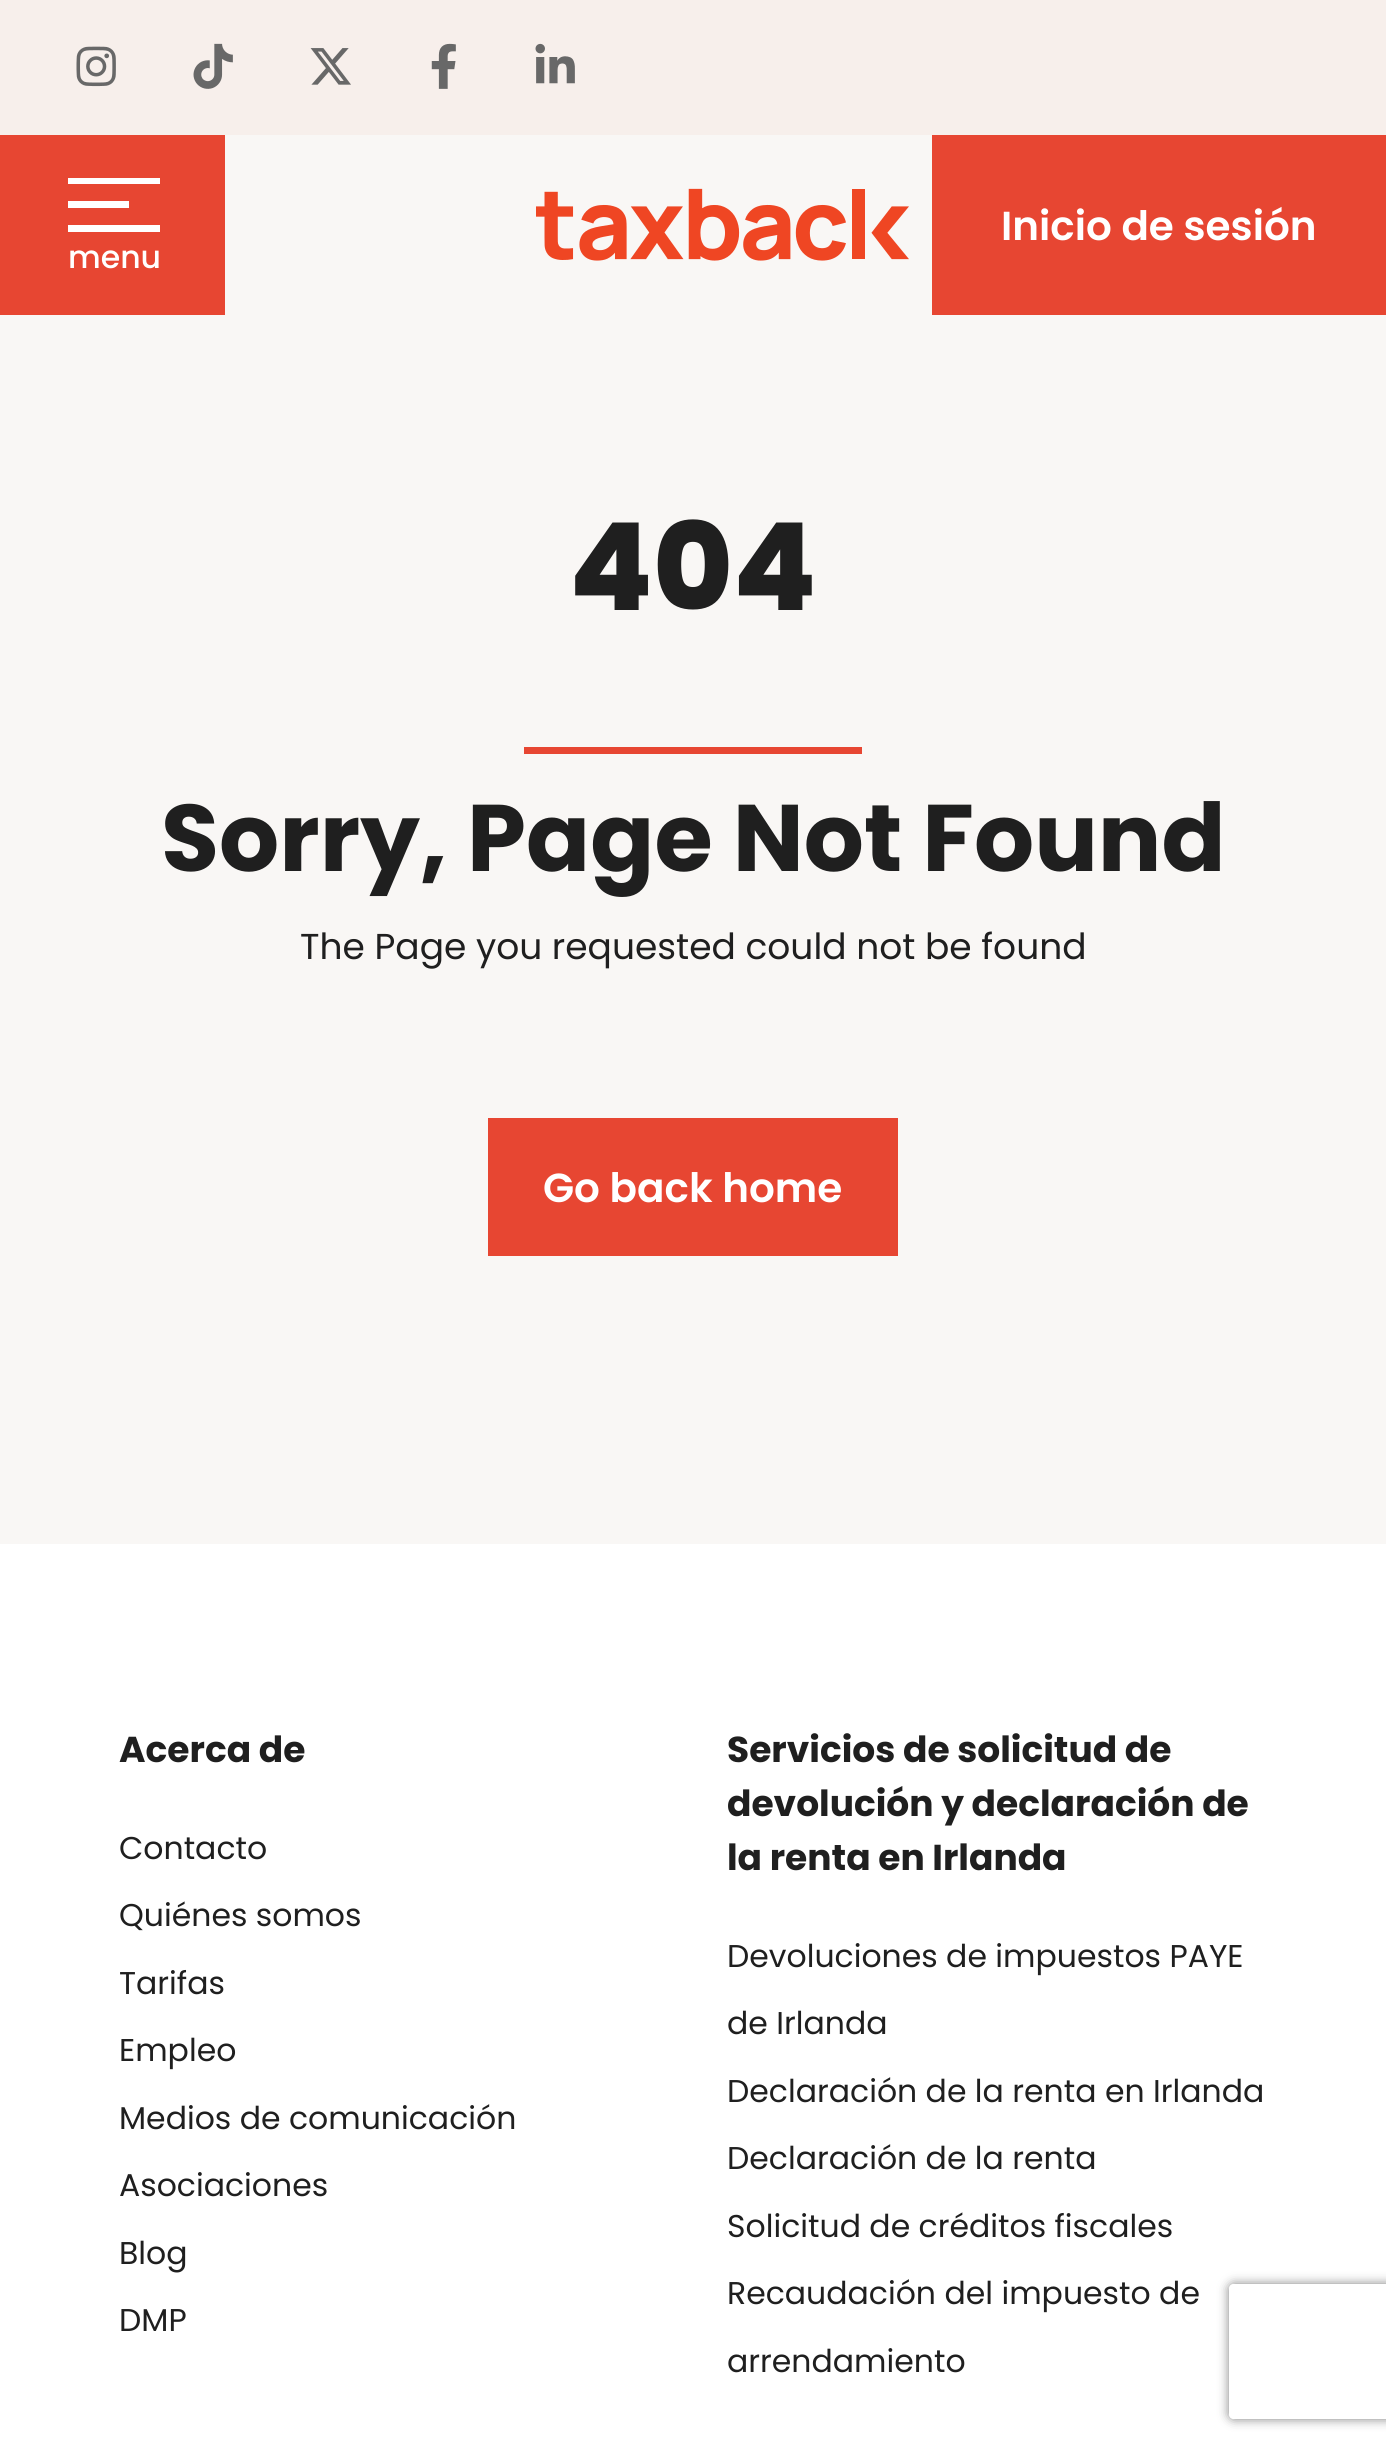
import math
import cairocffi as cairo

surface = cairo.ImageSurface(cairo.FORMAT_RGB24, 1386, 2450)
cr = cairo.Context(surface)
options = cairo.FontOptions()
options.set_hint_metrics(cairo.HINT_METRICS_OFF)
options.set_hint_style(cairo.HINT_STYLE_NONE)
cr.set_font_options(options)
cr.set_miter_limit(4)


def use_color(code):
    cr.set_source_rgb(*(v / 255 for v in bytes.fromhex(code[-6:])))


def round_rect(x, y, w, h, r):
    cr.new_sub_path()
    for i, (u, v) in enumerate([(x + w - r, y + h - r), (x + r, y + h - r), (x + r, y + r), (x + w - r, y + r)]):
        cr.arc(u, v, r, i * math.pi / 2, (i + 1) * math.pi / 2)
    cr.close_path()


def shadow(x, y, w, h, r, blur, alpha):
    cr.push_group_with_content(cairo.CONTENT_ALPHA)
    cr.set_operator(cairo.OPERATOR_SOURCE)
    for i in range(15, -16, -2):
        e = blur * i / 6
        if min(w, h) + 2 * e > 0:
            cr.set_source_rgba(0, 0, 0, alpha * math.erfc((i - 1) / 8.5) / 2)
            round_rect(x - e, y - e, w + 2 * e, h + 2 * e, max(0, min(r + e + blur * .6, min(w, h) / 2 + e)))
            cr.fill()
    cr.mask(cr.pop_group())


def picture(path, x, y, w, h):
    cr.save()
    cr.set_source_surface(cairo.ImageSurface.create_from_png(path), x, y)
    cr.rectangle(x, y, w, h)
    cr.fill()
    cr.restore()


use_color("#f9f7f5")
cr.paint()
use_color("#f7efeb")
cr.rectangle(0, 0, 1386, 135)
cr.fill()
picture("img1.png", 76, 46, 40, 41)
picture("img2.png", 193, 43, 40, 46)
picture("img3.png", 310, 48, 41, 37)
picture("img4.png", 431, 43, 25, 46)
picture("img5.png", 535, 43, 40, 41)
picture("img6.png", 536, 188, 373, 73)
use_color("#e74632")
cr.rectangle(932, 135, 454, 180)
cr.fill()
cr.select_font_face("Poppins SemiBold")
cr.set_font_size(40.5)
use_color("#ffffff")
cr.move_to(1001, 240)
cr.show_text("Inicio de sesión")
use_color("#e74632")
cr.rectangle(0, 135, 225, 180)
cr.fill()
use_color("#ffffff")
cr.new_path()
cr.move_to(68, 178)
cr.line_to(160, 178)
cr.line_to(160, 184)
cr.line_to(68, 184)
cr.close_path()
cr.move_to(68, 201)
cr.line_to(129, 201)
cr.line_to(129, 208)
cr.line_to(68, 208)
cr.close_path()
cr.move_to(68, 225)
cr.line_to(160, 225)
cr.line_to(160, 232)
cr.line_to(68, 232)
cr.close_path()
cr.fill()
cr.select_font_face("Poppins Medium")
cr.set_font_size(31.5)
cr.move_to(68, 268)
cr.show_text("menu")
cr.select_font_face("Poppins ExtraBold")
cr.set_font_size(121.5)
use_color("#1f1f1f")
cr.move_to(569, 610)
cr.show_text("404")
use_color("#e74632")
cr.rectangle(524, 747, 338, 7)
cr.fill()
cr.select_font_face("Poppins", cairo.FONT_SLANT_NORMAL, cairo.FONT_WEIGHT_BOLD)
cr.set_font_size(94.5)
use_color("#1f1f1f")
cr.move_to(161, 871)
cr.show_text("Sorry, Page Not Found")
cr.select_font_face("Poppins")
cr.set_font_size(36)
cr.move_to(300, 959)
cr.show_text("The Page you requested could not be found")
use_color("#e74632")
cr.rectangle(488, 1118, 410, 138)
cr.fill()
cr.select_font_face("Poppins SemiBold")
cr.set_font_size(40.5)
use_color("#ffffff")
cr.move_to(543, 1202)
cr.show_text("Go back home")
cr.rectangle(0, 1544, 1386, 906)
cr.fill()
cr.select_font_face("Poppins", cairo.FONT_SLANT_NORMAL, cairo.FONT_WEIGHT_BOLD)
cr.set_font_size(36)
use_color("#1f1f1f")
cr.move_to(119, 1762)
cr.show_text("Acerca de")
cr.select_font_face("Poppins")
cr.set_font_size(31.5)
cr.move_to(119, 1859)
cr.show_text("Contacto")
cr.move_to(119, 1926)
cr.show_text("Quiénes somos")
cr.move_to(119, 1994)
cr.show_text("Tarifas")
cr.move_to(119, 2061)
cr.show_text("Empleo")
cr.move_to(119, 2129)
cr.show_text("Medios de comunicación")
cr.move_to(119, 2196)
cr.show_text("Asociaciones")
cr.move_to(119, 2264)
cr.show_text("Blog")
cr.move_to(119, 2331)
cr.show_text("DMP")
cr.select_font_face("Poppins", cairo.FONT_SLANT_NORMAL, cairo.FONT_WEIGHT_BOLD)
cr.set_font_size(36)
cr.move_to(727, 1762)
cr.show_text("Servicios de solicitud de")
cr.move_to(727, 1816)
cr.show_text("devolución y declaración de")
cr.move_to(727, 1870)
cr.show_text("la renta en Irlanda")
cr.select_font_face("Poppins")
cr.set_font_size(31.5)
cr.move_to(727, 1967)
cr.show_text("Devoluciones de impuestos PAYE")
cr.move_to(727, 2034)
cr.show_text("de Irlanda")
cr.move_to(727, 2102)
cr.show_text("Declaración de la renta en Irlanda")
cr.move_to(727, 2169)
cr.show_text("Declaración de la renta")
cr.move_to(727, 2237)
cr.show_text("Solicitud de créditos fiscales")
cr.move_to(727, 2304)
cr.show_text("Recaudación del impuesto de")
cr.move_to(727, 2372)
cr.show_text("arrendamiento")
cr.save()
cr.set_fill_rule(cairo.FILL_RULE_EVEN_ODD)
cr.new_path()
cr.move_to(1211, 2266)
cr.line_to(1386, 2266)
cr.line_to(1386, 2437)
cr.line_to(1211, 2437)
cr.close_path()
cr.move_to(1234, 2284)
cr.line_to(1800, 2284)
cr.curve_to(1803, 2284, 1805, 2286, 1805, 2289)
cr.line_to(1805, 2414)
cr.curve_to(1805, 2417, 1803, 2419, 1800, 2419)
cr.line_to(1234, 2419)
cr.curve_to(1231, 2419, 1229, 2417, 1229, 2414)
cr.line_to(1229, 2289)
cr.curve_to(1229, 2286, 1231, 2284, 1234, 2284)
cr.close_path()
cr.clip()
use_color("#808080")
shadow(1229, 2284, 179, 135, 5, 5.5, 1)
cr.restore()
surface.write_to_png("result.png")
